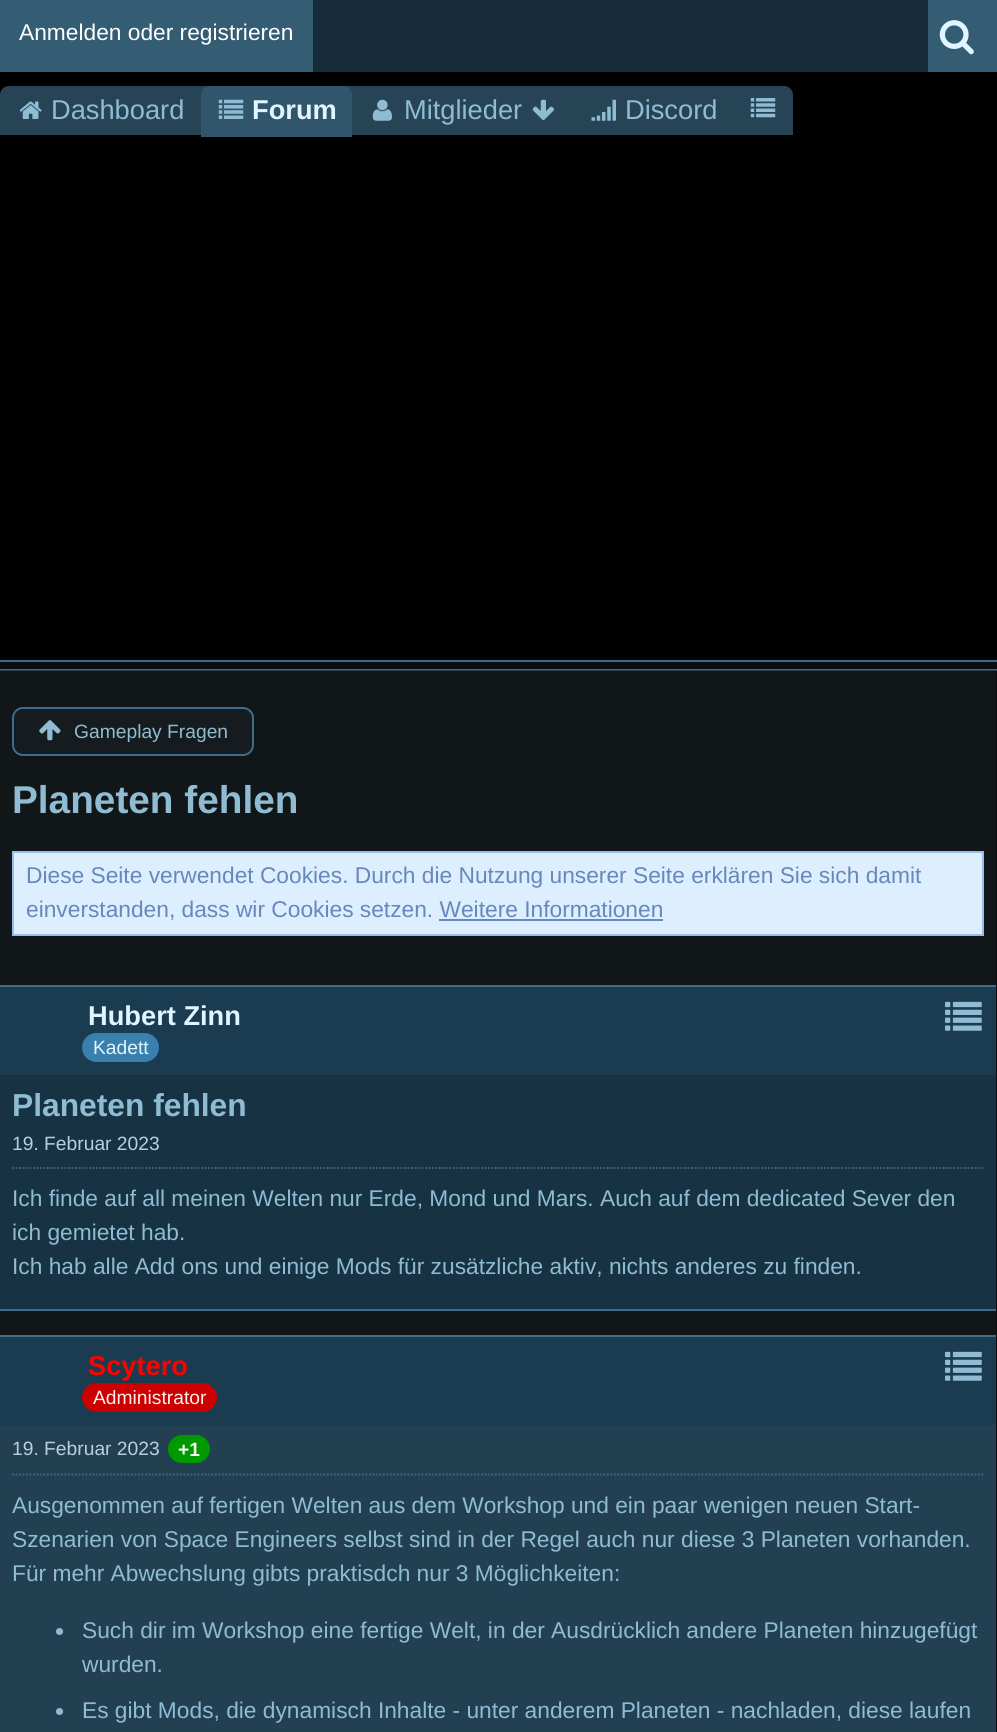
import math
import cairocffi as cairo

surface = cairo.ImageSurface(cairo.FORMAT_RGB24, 997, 1732)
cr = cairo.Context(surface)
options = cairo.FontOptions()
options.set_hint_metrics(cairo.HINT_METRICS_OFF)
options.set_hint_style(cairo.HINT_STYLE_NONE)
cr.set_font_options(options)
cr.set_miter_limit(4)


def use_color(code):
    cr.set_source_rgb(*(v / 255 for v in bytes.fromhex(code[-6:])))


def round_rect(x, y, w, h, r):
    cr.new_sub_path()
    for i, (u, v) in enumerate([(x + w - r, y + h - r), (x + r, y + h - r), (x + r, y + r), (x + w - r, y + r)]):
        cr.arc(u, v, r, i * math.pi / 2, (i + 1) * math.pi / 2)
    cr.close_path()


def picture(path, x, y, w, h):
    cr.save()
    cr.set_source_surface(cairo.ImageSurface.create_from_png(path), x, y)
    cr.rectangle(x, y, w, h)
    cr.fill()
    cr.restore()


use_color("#000000")
cr.paint()
use_color("#0b0e10")
cr.rectangle(996, 671, 1, 1061)
cr.fill()
use_color("#111619")
cr.rectangle(0, 671, 996, 664)
cr.fill()
use_color("#162c3a")
cr.rectangle(313, 0, 615, 72)
cr.fill()
use_color("#345d74")
cr.rectangle(0, 0, 313, 72)
cr.fill()
cr.select_font_face("Liberation Sans")
cr.set_font_size(22.75)
use_color("#ffffff")
cr.move_to(19, 40)
cr.show_text("Anmelden oder registrieren")
use_color("#345d74")
cr.rectangle(928, 0, 69, 72)
cr.fill()
picture("img1.png", 939, 20, 35, 35)
use_color("#274456")
cr.new_path()
cr.move_to(9, 86)
cr.line_to(784, 86)
cr.curve_to(789, 86, 793, 90, 793, 95)
cr.line_to(793, 135)
cr.line_to(0, 135)
cr.line_to(0, 95)
cr.curve_to(0, 90, 4, 86, 9, 86)
cr.close_path()
cr.fill()
picture("img2.png", 19, 101, 23, 18)
cr.set_font_size(27.25)
use_color("#8fbcd3")
cr.move_to(51, 119)
cr.show_text("Dashboard")
use_color("#31556b")
cr.new_path()
cr.move_to(210, 86)
cr.line_to(343, 86)
cr.curve_to(348, 86, 352, 90, 352, 95)
cr.line_to(352, 137)
cr.line_to(201, 137)
cr.line_to(201, 95)
cr.curve_to(201, 90, 205, 86, 210, 86)
cr.close_path()
cr.fill()
picture("img3.png", 218, 99, 26, 20)
cr.select_font_face("Liberation Sans", cairo.FONT_SLANT_NORMAL, cairo.FONT_WEIGHT_BOLD)
use_color("#e0f5ff")
cr.move_to(252, 119)
cr.show_text("Forum")
picture("img4.png", 372, 99, 20, 22)
cr.select_font_face("Liberation Sans")
use_color("#8fbcd3")
cr.move_to(404, 119)
cr.show_text("Mitglieder")
picture("img5.png", 532, 99, 22, 21)
picture("img6.png", 591, 99, 25, 22)
cr.move_to(625, 119)
cr.show_text("Discord")
picture("img7.png", 750, 98, 26, 20)
use_color("#0b0e10")
cr.rectangle(0, 662, 997, 7)
cr.fill()
use_color("#3d6d8b")
cr.rectangle(0, 660, 997, 2)
cr.fill()
cr.rectangle(0, 669, 997, 1)
cr.fill()
use_color("#273d4b")
cr.rectangle(0, 670, 997, 1)
cr.fill()
use_color("#151b1f")
round_rect(13, 708, 240, 47, 10)
cr.fill_preserve()
use_color("#3d6d8b")
cr.stroke()
picture("img8.png", 39, 720, 22, 21)
cr.set_font_size(19.25)
use_color("#8fbcd3")
cr.move_to(74, 738)
cr.show_text("Gameplay Fragen")
cr.select_font_face("Liberation Sans", cairo.FONT_SLANT_NORMAL, cairo.FONT_WEIGHT_BOLD)
cr.set_font_size(38.75)
cr.move_to(12, 813)
cr.show_text("Planeten fehlen")
use_color("#ddeeff")
cr.rectangle(13, 852, 970, 83)
cr.fill_preserve()
use_color("#99bbee")
cr.stroke()
cr.select_font_face("Liberation Sans")
cr.set_font_size(22.75)
use_color("#6688bb")
cr.move_to(26, 883)
cr.show_text("Diese Seite verwendet Cookies. Durch die Nutzung unserer Seite erklären Sie sich damit")
cr.move_to(26, 917)
cr.show_text("einverstanden, dass wir Cookies setzen. Weitere Informationen")
cr.rectangle(439, 919, 224, 2)
cr.fill()
use_color("#1b3c50")
cr.rectangle(0, 987, 996, 88)
cr.fill()
use_color("#3d6d8b")
cr.rectangle(0, 985, 996, 2)
cr.fill()
cr.rectangle(0, 1309, 996, 2)
cr.fill()
cr.select_font_face("Liberation Sans", cairo.FONT_SLANT_NORMAL, cairo.FONT_WEIGHT_BOLD)
cr.set_font_size(27.25)
use_color("#e0f5ff")
cr.move_to(88, 1025)
cr.show_text("Hubert Zinn")
use_color("#3980af")
round_rect(82, 1033, 77, 29, 14.5)
cr.fill()
cr.select_font_face("Liberation Sans")
cr.set_font_size(19.25)
use_color("#e0f5ff")
cr.move_to(93, 1054)
cr.show_text("Kadett")
use_color("#173242")
cr.rectangle(0, 1075, 996, 234)
cr.fill()
cr.select_font_face("Liberation Sans", cairo.FONT_SLANT_NORMAL, cairo.FONT_WEIGHT_BOLD)
cr.set_font_size(31.75)
use_color("#8fbcd3")
cr.move_to(12, 1116)
cr.show_text("Planeten fehlen")
cr.select_font_face("Liberation Sans")
cr.set_font_size(19.25)
use_color("#bacfdd")
cr.move_to(12, 1150)
cr.show_text("19. Februar 2023")
picture("img9.png", 945, 1001, 37, 30)
cr.new_path()
cr.move_to(12, 1168)
cr.line_to(983.5, 1168)
use_color("#3d6d8b")
cr.set_line_width(1.8)
cr.set_dash([1.75, 1.75])
cr.stroke()
cr.set_font_size(22.75)
use_color("#8fbcd3")
cr.move_to(12, 1206)
cr.show_text("Ich finde auf all meinen Welten nur Erde, Mond und Mars. Auch auf dem dedicated Sever den")
cr.move_to(12, 1240)
cr.show_text("ich gemietet hab.")
cr.move_to(12, 1274)
cr.show_text("Ich hab alle Add ons und einige Mods für zusätzliche aktiv, nichts anderes zu finden.")
use_color("#1b3c50")
cr.rectangle(0, 1337, 996, 88)
cr.fill()
use_color("#3d6d8b")
cr.rectangle(0, 1335, 996, 2)
cr.fill()
cr.select_font_face("Liberation Sans", cairo.FONT_SLANT_NORMAL, cairo.FONT_WEIGHT_BOLD)
cr.set_font_size(27.25)
use_color("#ff0000")
cr.move_to(88, 1375)
cr.show_text("Scytero")
use_color("#cc0000")
round_rect(82, 1383, 135, 29, 14.5)
cr.fill()
cr.select_font_face("Liberation Sans")
cr.set_font_size(19.25)
use_color("#ffeeee")
cr.move_to(93, 1404)
cr.show_text("Administrator")
use_color("#234052")
cr.rectangle(0, 1425, 996, 307)
cr.fill()
use_color("#bacfdd")
cr.move_to(12, 1455)
cr.show_text("19. Februar 2023")
use_color("#009900")
round_rect(168, 1435, 42, 28, 14)
cr.fill()
cr.select_font_face("Liberation Sans", cairo.FONT_SLANT_NORMAL, cairo.FONT_WEIGHT_BOLD)
use_color("#eeffee")
cr.move_to(178, 1456)
cr.show_text("+1")
picture("img9.png", 945, 1351, 37, 30)
cr.new_path()
cr.move_to(12, 1474.5)
cr.line_to(983.5, 1474.5)
use_color("#3d6d8b")
cr.stroke()
cr.select_font_face("Liberation Sans")
cr.set_font_size(22.75)
use_color("#8fbcd3")
cr.move_to(12, 1513)
cr.show_text("Ausgenommen auf fertigen Welten aus dem Workshop und ein paar wenigen neuen Start-")
cr.move_to(12, 1547)
cr.show_text("Szenarien von Space Engineers selbst sind in der Regel auch nur diese 3 Planeten vorhanden.")
cr.move_to(12, 1581)
cr.show_text("Für mehr Abwechslung gibts praktisdch nur 3 Möglichkeiten:")
cr.new_path()
cr.arc(59.5, 1631.5, 3.5, 0, 2 * math.pi)
cr.fill()
cr.move_to(82, 1638)
cr.show_text("Such dir im Workshop eine fertige Welt, in der Ausdrücklich andere Planeten hinzugefügt")
cr.move_to(82, 1672)
cr.show_text("wurden.")
cr.new_path()
cr.arc(59.5, 1711.5, 3.5, 0, 2 * math.pi)
cr.fill()
cr.move_to(82, 1718)
cr.show_text("Es gibt Mods, die dynamisch Inhalte - unter anderem Planeten - nachladen, diese laufen")
surface.write_to_png("result.png")
